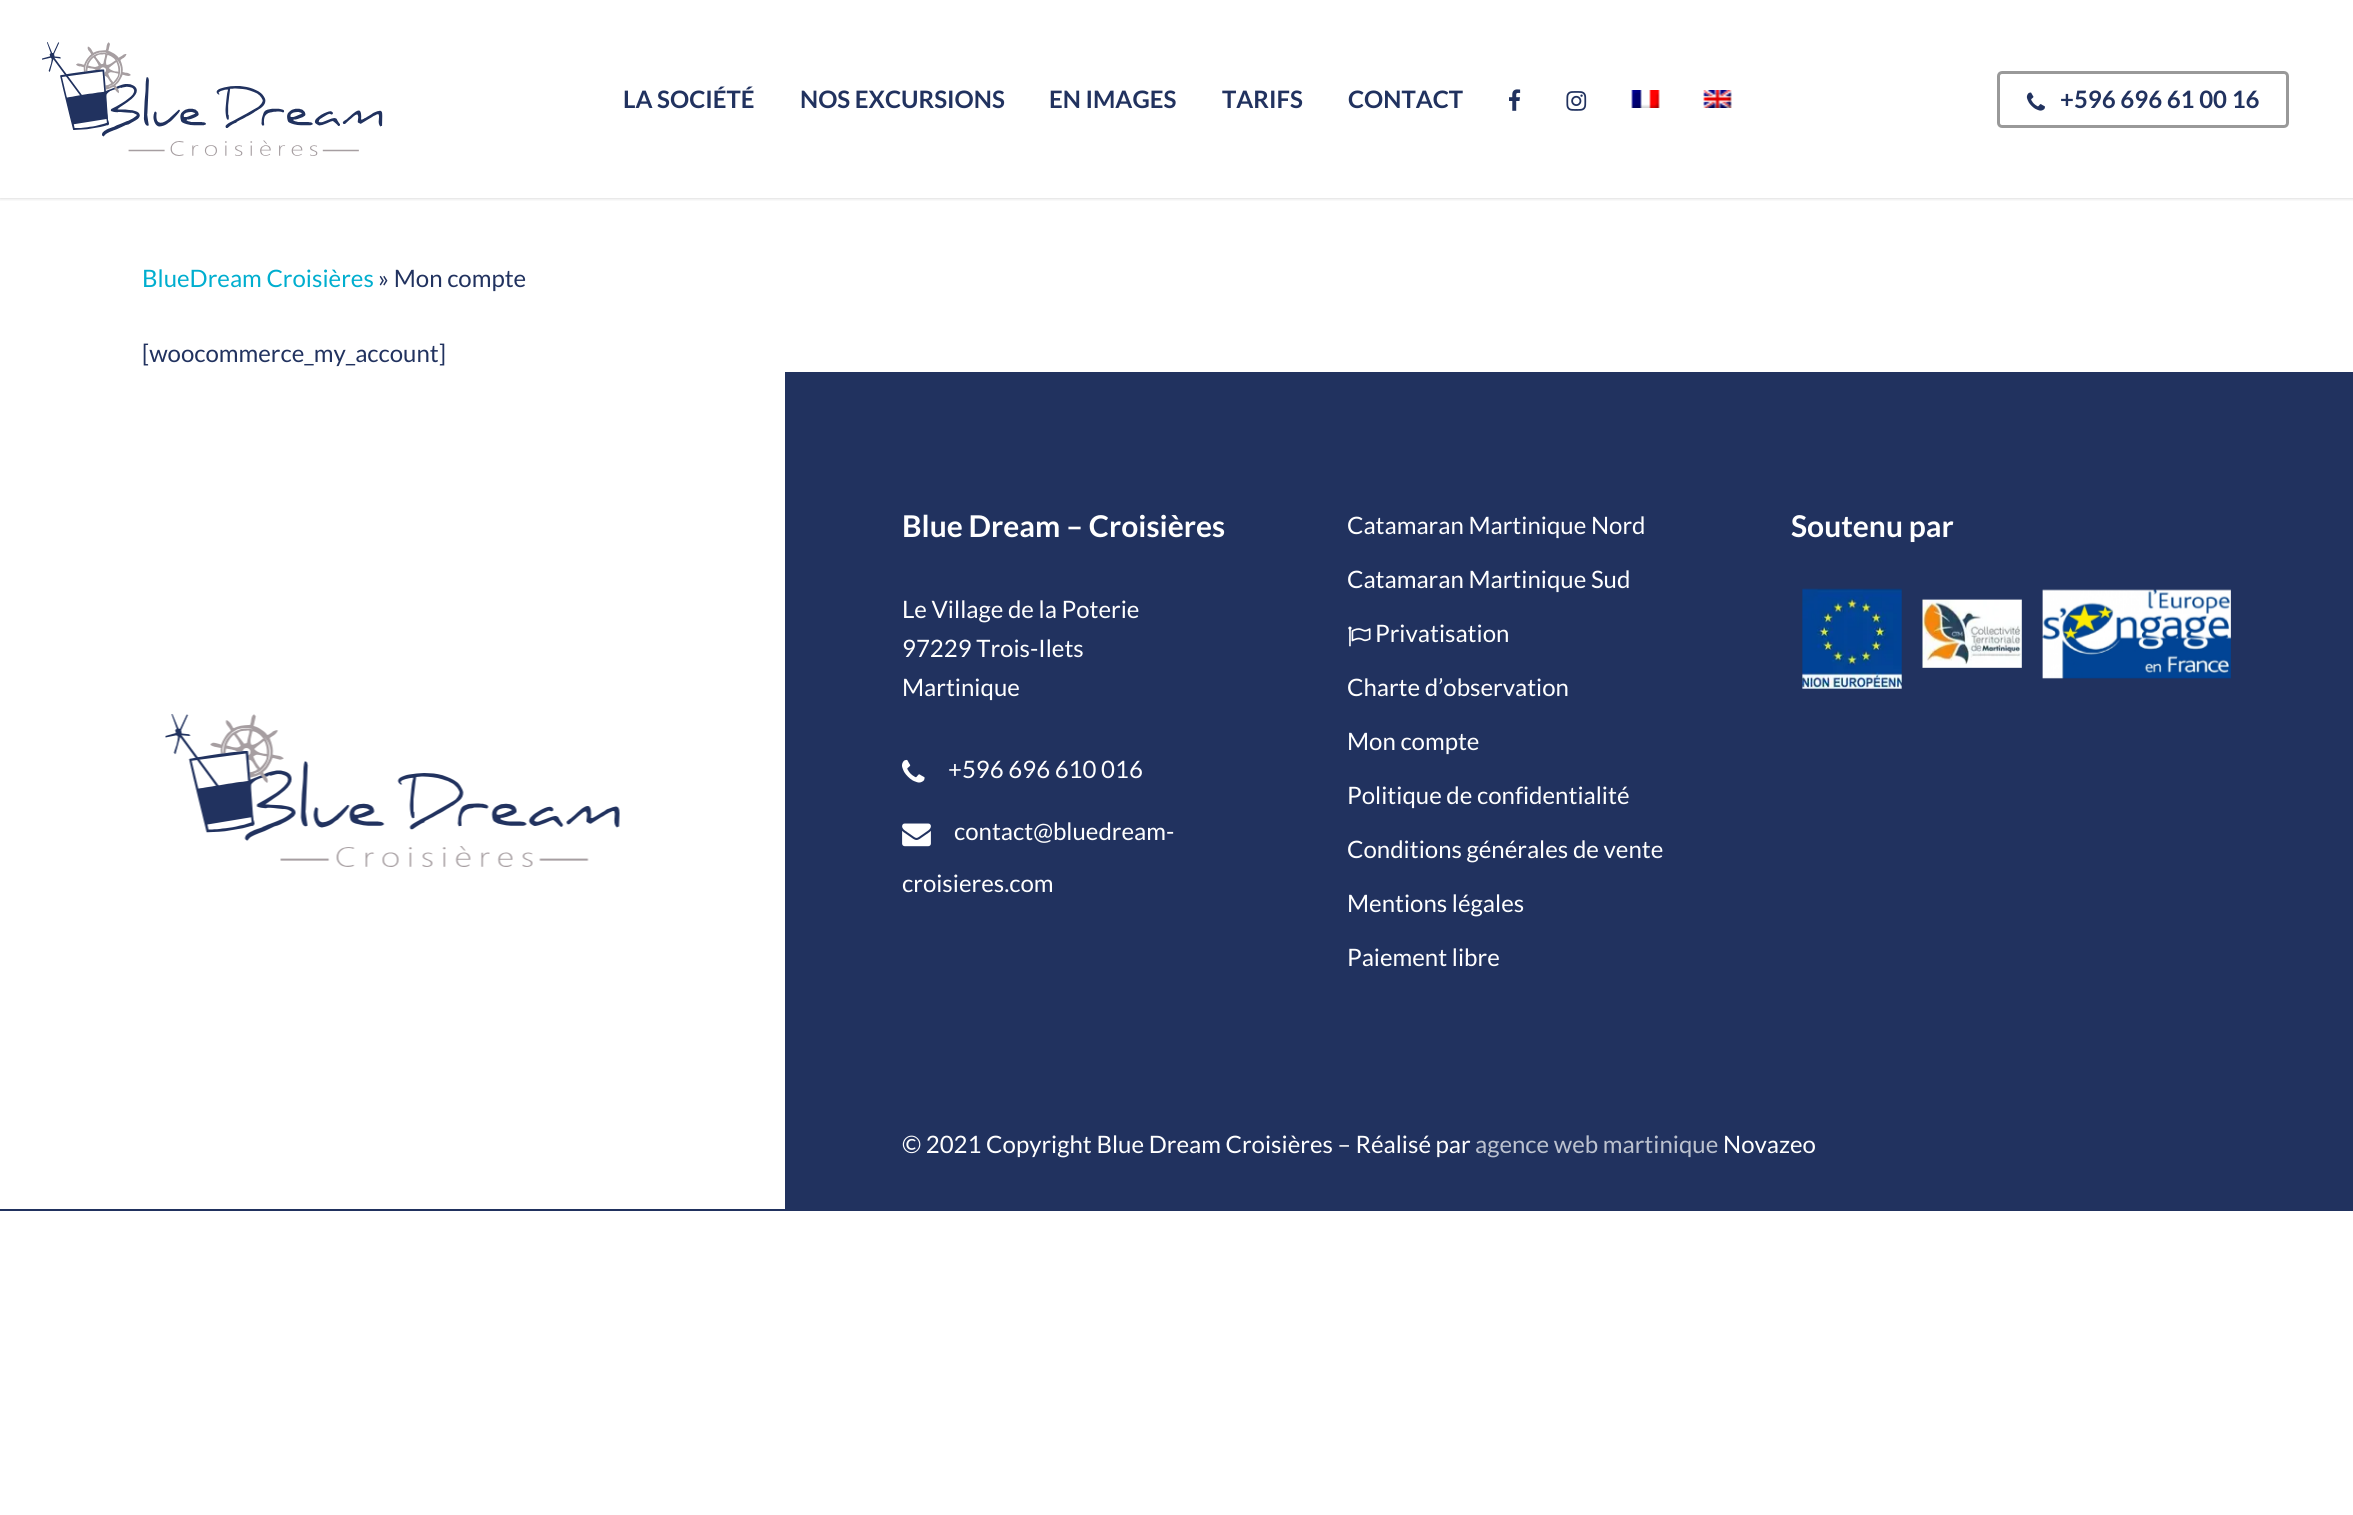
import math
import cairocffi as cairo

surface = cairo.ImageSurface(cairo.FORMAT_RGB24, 2353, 1515)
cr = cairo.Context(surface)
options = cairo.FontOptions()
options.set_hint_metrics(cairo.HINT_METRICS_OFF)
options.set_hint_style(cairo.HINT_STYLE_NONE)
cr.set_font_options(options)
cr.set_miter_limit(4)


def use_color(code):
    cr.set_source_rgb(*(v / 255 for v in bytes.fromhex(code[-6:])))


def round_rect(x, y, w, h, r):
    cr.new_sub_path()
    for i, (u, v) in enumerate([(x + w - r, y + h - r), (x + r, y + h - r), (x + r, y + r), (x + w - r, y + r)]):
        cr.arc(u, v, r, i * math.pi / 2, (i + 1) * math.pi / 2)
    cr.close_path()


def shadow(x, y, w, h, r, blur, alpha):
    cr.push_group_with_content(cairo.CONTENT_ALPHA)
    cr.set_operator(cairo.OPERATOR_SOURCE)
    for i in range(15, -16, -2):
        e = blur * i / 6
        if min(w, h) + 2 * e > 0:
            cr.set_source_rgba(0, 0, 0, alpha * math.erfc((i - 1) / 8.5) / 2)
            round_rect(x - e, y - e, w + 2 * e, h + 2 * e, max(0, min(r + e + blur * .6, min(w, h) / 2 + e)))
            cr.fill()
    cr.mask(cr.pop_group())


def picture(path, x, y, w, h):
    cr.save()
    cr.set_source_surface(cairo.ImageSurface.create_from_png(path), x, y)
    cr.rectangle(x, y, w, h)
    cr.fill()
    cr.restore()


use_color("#ffffff")
cr.paint()
cr.save()
cr.rectangle(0, 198, 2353, 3)
cr.clip()
use_color("#000000")
shadow(0, 0, 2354, 198, 0, 2, 0.22)
cr.restore()
picture("img1.png", 42, 42, 341, 114)
cr.select_font_face("Lato", cairo.FONT_SLANT_NORMAL, cairo.FONT_WEIGHT_BOLD)
cr.set_font_size(24)
use_color("#21325f")
cr.move_to(623, 108)
cr.show_text("LA SOCIÉTÉ")
cr.move_to(800, 108)
cr.show_text("NOS EXCURSIONS")
cr.move_to(1049, 108)
cr.show_text("EN IMAGES")
cr.move_to(1222, 108)
cr.show_text("TARIFS")
cr.move_to(1348, 108)
cr.show_text("CONTACT")
picture("img2.png", 1509, 89, 12, 22)
picture("img3.png", 1566, 91, 21, 20)
picture("img4.png", 1631, 90, 29, 18)
picture("img5.png", 1703, 90, 29, 18)
round_rect(1998.5, 72.5, 289, 54, 3.5)
use_color("#999999")
cr.set_line_width(3)
cr.stroke()
picture("img6.png", 2026, 92, 19, 19)
use_color("#21325f")
cr.move_to(2060, 108)
cr.show_text("+596 696 61 00 16")
cr.select_font_face("Lato")
use_color("#00aecf")
cr.move_to(142, 287)
cr.show_text("BlueDream Croisières")
use_color("#21325f")
cr.move_to(378, 287)
cr.show_text("» Mon compte")
cr.move_to(142, 362)
cr.show_text("[woocommerce_my_account]")
cr.rectangle(0, 372, 2353, 839)
cr.fill()
use_color("#ffffff")
cr.rectangle(0, 372, 785, 837)
cr.fill()
picture("img7.png", 165, 714, 455, 153)
cr.select_font_face("Lato", cairo.FONT_SLANT_NORMAL, cairo.FONT_WEIGHT_BOLD)
cr.set_font_size(30)
cr.move_to(902, 537)
cr.show_text("Blue Dream – Croisières")
cr.select_font_face("Lato")
cr.set_font_size(24)
cr.move_to(902, 618)
cr.show_text("Le Village de la Poterie")
cr.move_to(902, 657)
cr.show_text("97229 Trois-Ilets")
cr.move_to(902, 696)
cr.show_text("Martinique")
picture("img8.png", 902, 759, 23, 24)
cr.move_to(948, 778)
cr.show_text("+596 696 610 016")
picture("img9.png", 902, 823, 29, 24)
cr.move_to(954, 840)
cr.show_text("contact@bluedream-")
cr.move_to(902, 892)
cr.show_text("croisieres.com")
cr.move_to(1347, 534)
cr.show_text("Catamaran Martinique Nord")
cr.move_to(1347, 588)
cr.show_text("Catamaran Martinique Sud")
picture("img10.png", 1348, 626, 23, 21)
cr.move_to(1375, 642)
cr.show_text("Privatisation")
cr.move_to(1347, 696)
cr.show_text("Charte d’observation")
cr.move_to(1347, 750)
cr.show_text("Mon compte")
cr.move_to(1347, 804)
cr.show_text("Politique de confidentialité")
cr.move_to(1347, 858)
cr.show_text("Conditions générales de vente")
cr.move_to(1347, 912)
cr.show_text("Mentions légales")
cr.move_to(1347, 966)
cr.show_text("Paiement libre")
cr.select_font_face("Lato", cairo.FONT_SLANT_NORMAL, cairo.FONT_WEIGHT_BOLD)
cr.set_font_size(30)
cr.move_to(1791, 537)
cr.show_text("Soutenu par")
picture("img11.png", 1802, 588, 429, 101)
cr.select_font_face("Lato")
cr.set_font_size(24)
cr.move_to(902, 1153)
cr.show_text("© 2021 Copyright Blue Dream Croisières – Réalisé par")
use_color("#bcc2cf")
cr.move_to(1475, 1153)
cr.show_text("agence web martinique")
use_color("#ffffff")
cr.move_to(1723, 1153)
cr.show_text("Novazeo")
surface.write_to_png("result.png")
